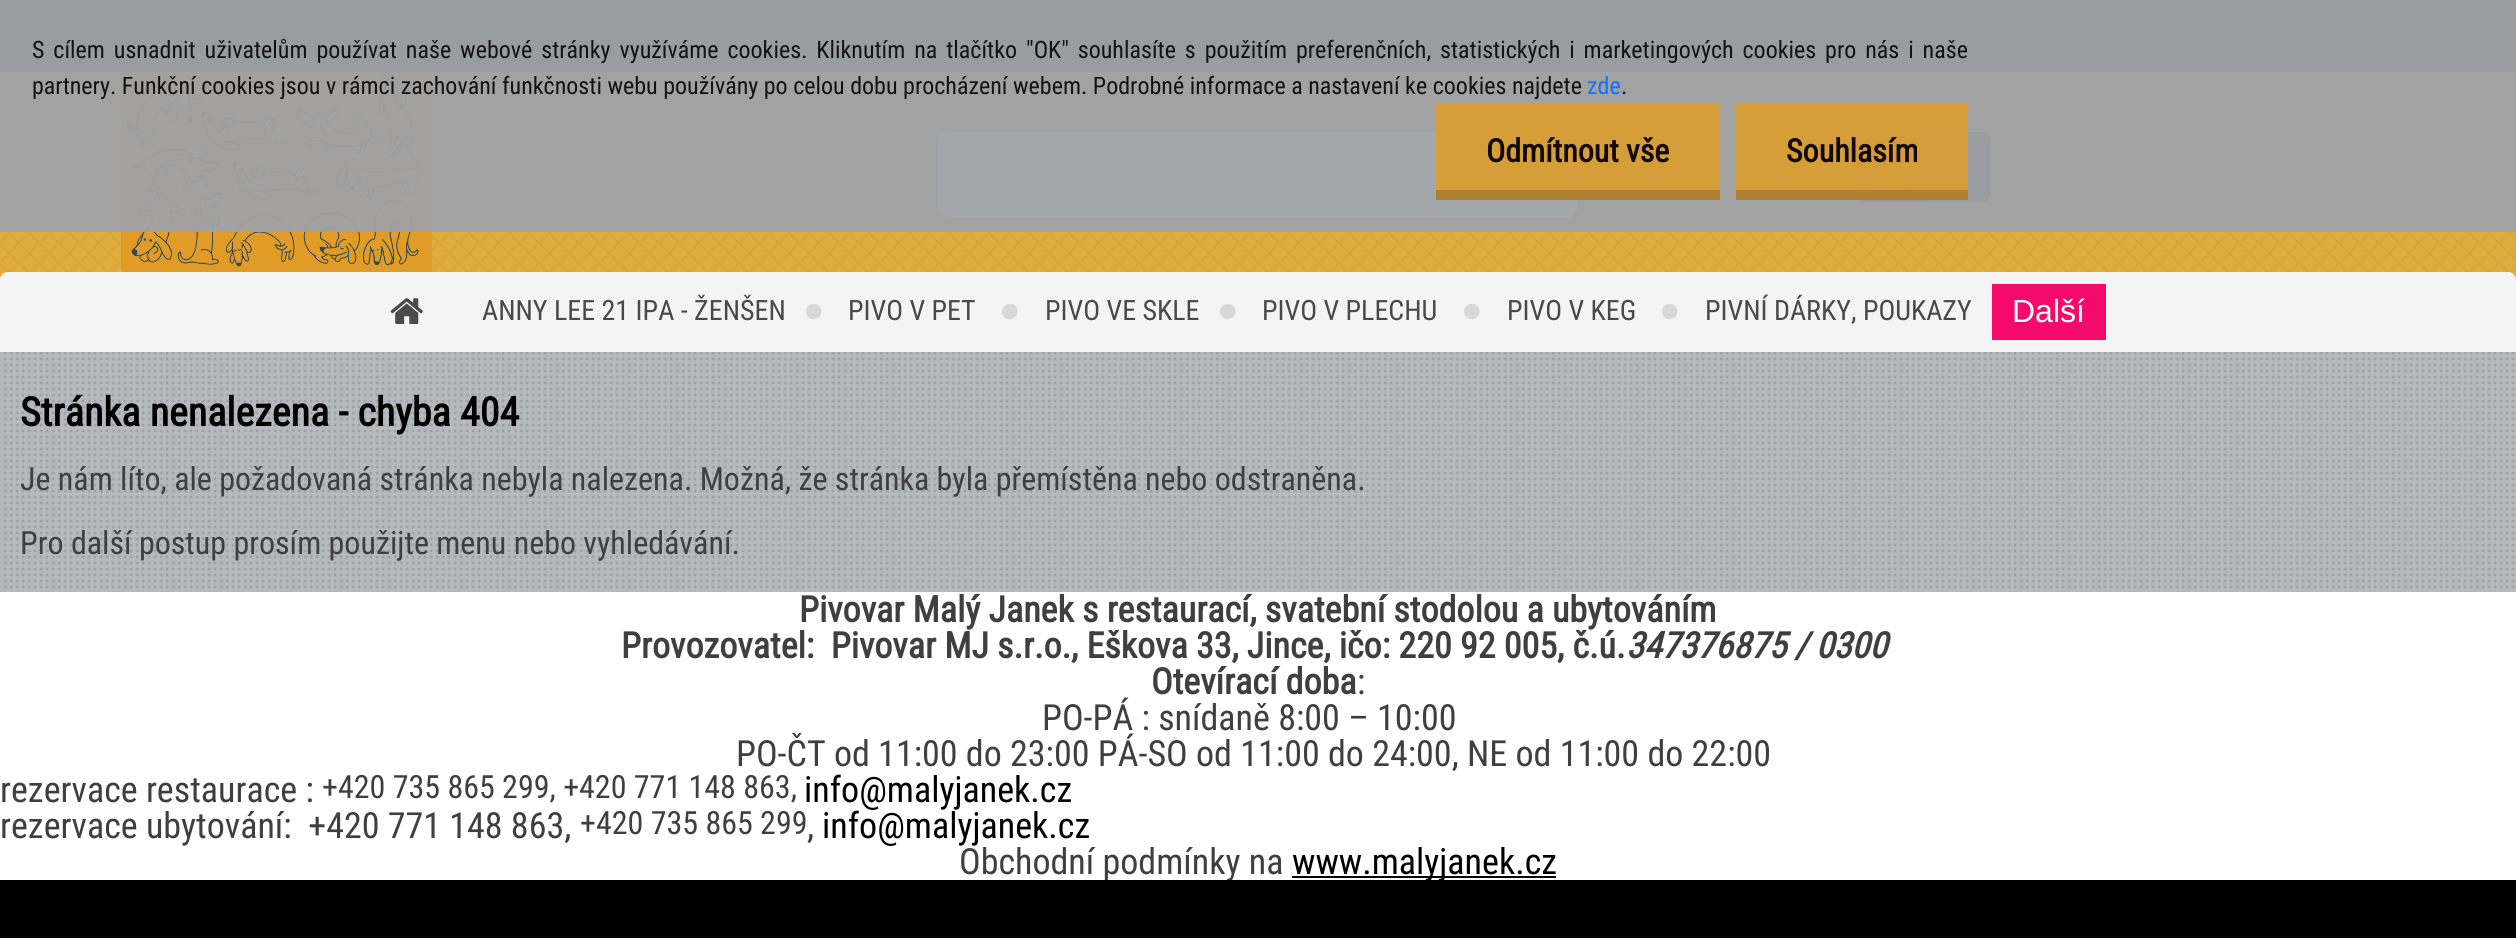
import math
import cairocffi as cairo

surface = cairo.ImageSurface(cairo.FORMAT_RGB24, 2516, 938)
cr = cairo.Context(surface)
options = cairo.FontOptions()
options.set_hint_metrics(cairo.HINT_METRICS_OFF)
options.set_hint_style(cairo.HINT_STYLE_NONE)
cr.set_font_options(options)
cr.set_miter_limit(4)


def use_color(code):
    cr.set_source_rgb(*(v / 255 for v in bytes.fromhex(code[-6:])))


def spaced_text(x, y, s, letter, word):
    cr.move_to(x, y)
    for ch in s:
        cr.show_text(ch)
        cr.rel_move_to(letter + word * (ch == ' '), 0)


def round_rect(x, y, w, h, r):
    cr.new_sub_path()
    for i, (u, v) in enumerate([(x + w - r, y + h - r), (x + r, y + h - r), (x + r, y + r), (x + w - r, y + r)]):
        cr.arc(u, v, r, i * math.pi / 2, (i + 1) * math.pi / 2)
    cr.close_path()


def picture(path, x, y, w, h):
    cr.save()
    cr.set_source_surface(cairo.ImageSurface.create_from_png(path), x, y)
    cr.rectangle(x, y, w, h)
    cr.fill()
    cr.restore()


use_color("#ffffff")
cr.paint()
use_color("#313030")
cr.rectangle(0, 0, 2516, 72)
cr.fill()
use_color("#dead3b")
cr.rectangle(0, 72, 2516, 208)
cr.fill()
picture("img1.png", 0, 72, 2516, 208)
picture("img2.png", 120, 72, 312, 200)
use_color("#f8f8f8")
round_rect(938, 128, 640, 90, 12)
cr.fill()
use_color("#cccccc")
cr.new_path()
cr.move_to(950, 128)
cr.curve_to(946, 128, 942, 130, 940, 133)
cr.line_to(942, 136)
cr.curve_to(943, 133, 946, 132, 950, 132)
cr.line_to(1566, 132)
cr.curve_to(1570, 132, 1573, 133, 1574, 136)
cr.line_to(1576, 133)
cr.curve_to(1574, 130, 1570, 128, 1566, 128)
cr.close_path()
cr.fill()
picture("img3.png", 1518, 161, 32, 29)
use_color("#f40a6a")
cr.new_path()
cr.move_to(1862, 132)
cr.line_to(1924, 132)
cr.line_to(1924, 202)
cr.line_to(1862, 202)
cr.curve_to(1857.5, 202, 1854, 198.5, 1854, 194)
cr.line_to(1854, 140)
cr.curve_to(1854, 135.5, 1857.5, 132, 1862, 132)
cr.close_path()
cr.fill()
picture("img4.png", 1868, 145, 46, 41)
use_color("#313030")
cr.new_path()
cr.move_to(1924, 132)
cr.line_to(1982, 132)
cr.curve_to(1986.5, 132, 1990, 135.5, 1990, 140)
cr.line_to(1990, 194)
cr.curve_to(1990, 198.5, 1986.5, 202, 1982, 202)
cr.line_to(1924, 202)
cr.close_path()
cr.fill()
cr.set_source_rgba(0.624, 0.635, 0.651, 0.95)
cr.rectangle(0, 0, 2516, 232)
cr.fill()
cr.select_font_face("Roboto Condensed")
cr.set_font_size(24)
use_color("#141313")
spaced_text(32, 58, "S cílem usnadnit uživatelům používat naše webové stránky využíváme cookies. Kliknutím na tlačítko \"OK\" souhlasíte s použitím preferenčních, statistických i marketingových cookies pro nás i naše", 0, 3.4)
cr.move_to(32, 94)
cr.show_text("partnery. Funkční cookies jsou v rámci zachování funkčnosti webu používány po celou dobu procházení webem. Podrobné informace a nastavení ke cookies najdete")
use_color("#1471f8")
cr.move_to(1587, 94)
cr.show_text("zde")
use_color("#1c1913")
cr.move_to(1621, 94)
cr.show_text(".")
cr.set_source_rgba(0.843, 0.62, 0.204, 0.95)
cr.rectangle(1436, 104, 284, 86)
cr.fill()
use_color("#ac802f")
cr.rectangle(1436, 190, 284, 10)
cr.fill()
cr.select_font_face("Roboto Condensed", cairo.FONT_SLANT_NORMAL, cairo.FONT_WEIGHT_BOLD)
cr.set_font_size(32)
use_color("#120904")
cr.move_to(1486, 162)
cr.show_text("Odmítnout vše")
cr.set_source_rgba(0.843, 0.62, 0.204, 0.95)
cr.rectangle(1736, 104, 232, 86)
cr.fill()
use_color("#ac802f")
cr.rectangle(1736, 190, 232, 10)
cr.fill()
use_color("#120904")
cr.move_to(1786, 162)
cr.show_text("Souhlasím")
use_color("#f4f4f4")
cr.new_path()
cr.move_to(8, 272)
cr.line_to(2508, 272)
cr.curve_to(2512.5, 272, 2516, 275.5, 2516, 280)
cr.line_to(2516, 352)
cr.line_to(0, 352)
cr.line_to(0, 280)
cr.curve_to(0, 275.5, 3.5, 272, 8, 272)
cr.close_path()
cr.fill()
picture("img5.png", 390, 298, 33, 26)
cr.select_font_face("Roboto Condensed")
cr.set_font_size(28)
use_color("#494949")
cr.move_to(482, 320)
cr.show_text("ANNY LEE 21 IPA - ŽENŠEN")
use_color("#d8d8d8")
cr.new_path()
cr.move_to(820.5, 307.5)
cr.curve_to(825.5, 316.5, 812, 324, 807, 315.5)
cr.curve_to(802, 306.5, 815.5, 299, 820.5, 307.5)
cr.close_path()
cr.fill()
use_color("#494949")
cr.move_to(848, 320)
cr.show_text("PIVO V PET")
use_color("#d8d8d8")
cr.new_path()
cr.move_to(1016.5, 307.5)
cr.curve_to(1021.5, 316.5, 1008, 324, 1003, 315.5)
cr.curve_to(998, 306.5, 1011.5, 299, 1016.5, 307.5)
cr.close_path()
cr.fill()
use_color("#494949")
cr.move_to(1045, 320)
cr.show_text("PIVO VE SKLE")
use_color("#d8d8d8")
cr.new_path()
cr.move_to(1234.5, 307.5)
cr.curve_to(1239.5, 316.5, 1226, 324, 1221, 315.5)
cr.curve_to(1216, 306.5, 1229.5, 299, 1234.5, 307.5)
cr.close_path()
cr.fill()
use_color("#494949")
cr.move_to(1262, 320)
cr.show_text("PIVO V PLECHU")
use_color("#d8d8d8")
cr.new_path()
cr.move_to(1478.5, 307.5)
cr.curve_to(1483.5, 316.5, 1470, 324, 1465, 315.5)
cr.curve_to(1460, 306.5, 1473.5, 299, 1478.5, 307.5)
cr.close_path()
cr.fill()
use_color("#494949")
cr.move_to(1507, 320)
cr.show_text("PIVO V KEG")
use_color("#d8d8d8")
cr.new_path()
cr.move_to(1676.5, 307.5)
cr.curve_to(1681.5, 316.5, 1668, 324, 1663, 315.5)
cr.curve_to(1658, 306.5, 1671.5, 299, 1676.5, 307.5)
cr.close_path()
cr.fill()
use_color("#494949")
cr.move_to(1705, 320)
cr.show_text("PIVNÍ DÁRKY, POUKAZY")
use_color("#f40a6a")
cr.rectangle(1992, 284, 114, 56)
cr.fill()
cr.select_font_face("Liberation Sans")
cr.set_font_size(32)
use_color("#ffffff")
cr.move_to(2012, 322)
cr.show_text("Další")
use_color("#b6babe")
cr.rectangle(0, 352, 2516, 240)
cr.fill()
picture("img6.png", 0, 352, 2515, 240)
cr.select_font_face("Roboto Condensed", cairo.FONT_SLANT_NORMAL, cairo.FONT_WEIGHT_BOLD)
cr.set_font_size(40)
use_color("#000000")
cr.move_to(20, 426)
cr.show_text("Stránka nenalezena - chyba 404")
cr.select_font_face("Roboto Condensed")
cr.set_font_size(32)
use_color("#3f3f3f")
cr.move_to(20, 490)
cr.show_text("Je nám líto, ale požadovaná stránka nebyla nalezena. Možná, že stránka byla přemístěna nebo odstraněna.")
cr.move_to(20, 554)
cr.show_text("Pro další postup prosím použijte menu nebo vyhledávání.")
cr.select_font_face("Roboto Condensed", cairo.FONT_SLANT_NORMAL, cairo.FONT_WEIGHT_BOLD)
cr.set_font_size(36)
cr.move_to(799, 622)
cr.show_text("Pivovar Malý Janek s restaurací, svatební stodolou a ubytováním")
cr.move_to(621, 658)
cr.show_text("Provozovatel:  Pivovar MJ s.r.o., Eškova 33, Jince, ičo: 220 92 005, č.ú.")
cr.select_font_face("Roboto Condensed", cairo.FONT_SLANT_ITALIC, cairo.FONT_WEIGHT_BOLD)
cr.move_to(1626, 658)
cr.show_text("347376875 / 0300")
cr.select_font_face("Roboto Condensed", cairo.FONT_SLANT_NORMAL, cairo.FONT_WEIGHT_BOLD)
cr.move_to(1151, 694)
cr.show_text("Otevírací doba")
cr.select_font_face("Roboto Condensed")
cr.move_to(1357, 694)
cr.show_text(":")
cr.move_to(1042, 730)
cr.show_text("PO-PÁ : snídaně 8:00 – 10:00")
cr.move_to(736, 766)
cr.show_text("PO-ČT od 11:00 do 23:00 PÁ-SO od 11:00 do 24:00, NE od 11:00 do 22:00")
cr.move_to(0, 802)
cr.show_text("rezervace restaurace :")
cr.set_font_size(32)
cr.move_to(322, 798)
cr.show_text("+420 735 865 299, +420 771 148 863,")
cr.set_font_size(36)
use_color("#000000")
cr.move_to(804, 802)
cr.show_text("info@malyjanek.cz")
use_color("#3f3f3f")
cr.move_to(0, 838)
cr.show_text("rezervace ubytování:  +420 771 148 863,")
cr.set_font_size(32)
cr.move_to(580, 834)
cr.show_text("+420 735 865 299")
cr.set_font_size(36)
cr.move_to(807, 838)
cr.show_text(",")
use_color("#000000")
cr.move_to(822, 838)
cr.show_text("info@malyjanek.cz")
use_color("#3f3f3f")
cr.move_to(959, 874)
cr.show_text("Obchodní podmínky na")
use_color("#000000")
cr.rectangle(1292, 876, 264, 2)
cr.fill()
cr.move_to(1292, 874)
cr.show_text("www.malyjanek.cz")
cr.rectangle(0, 880, 2516, 58)
cr.fill()
surface.write_to_png("result.png")
